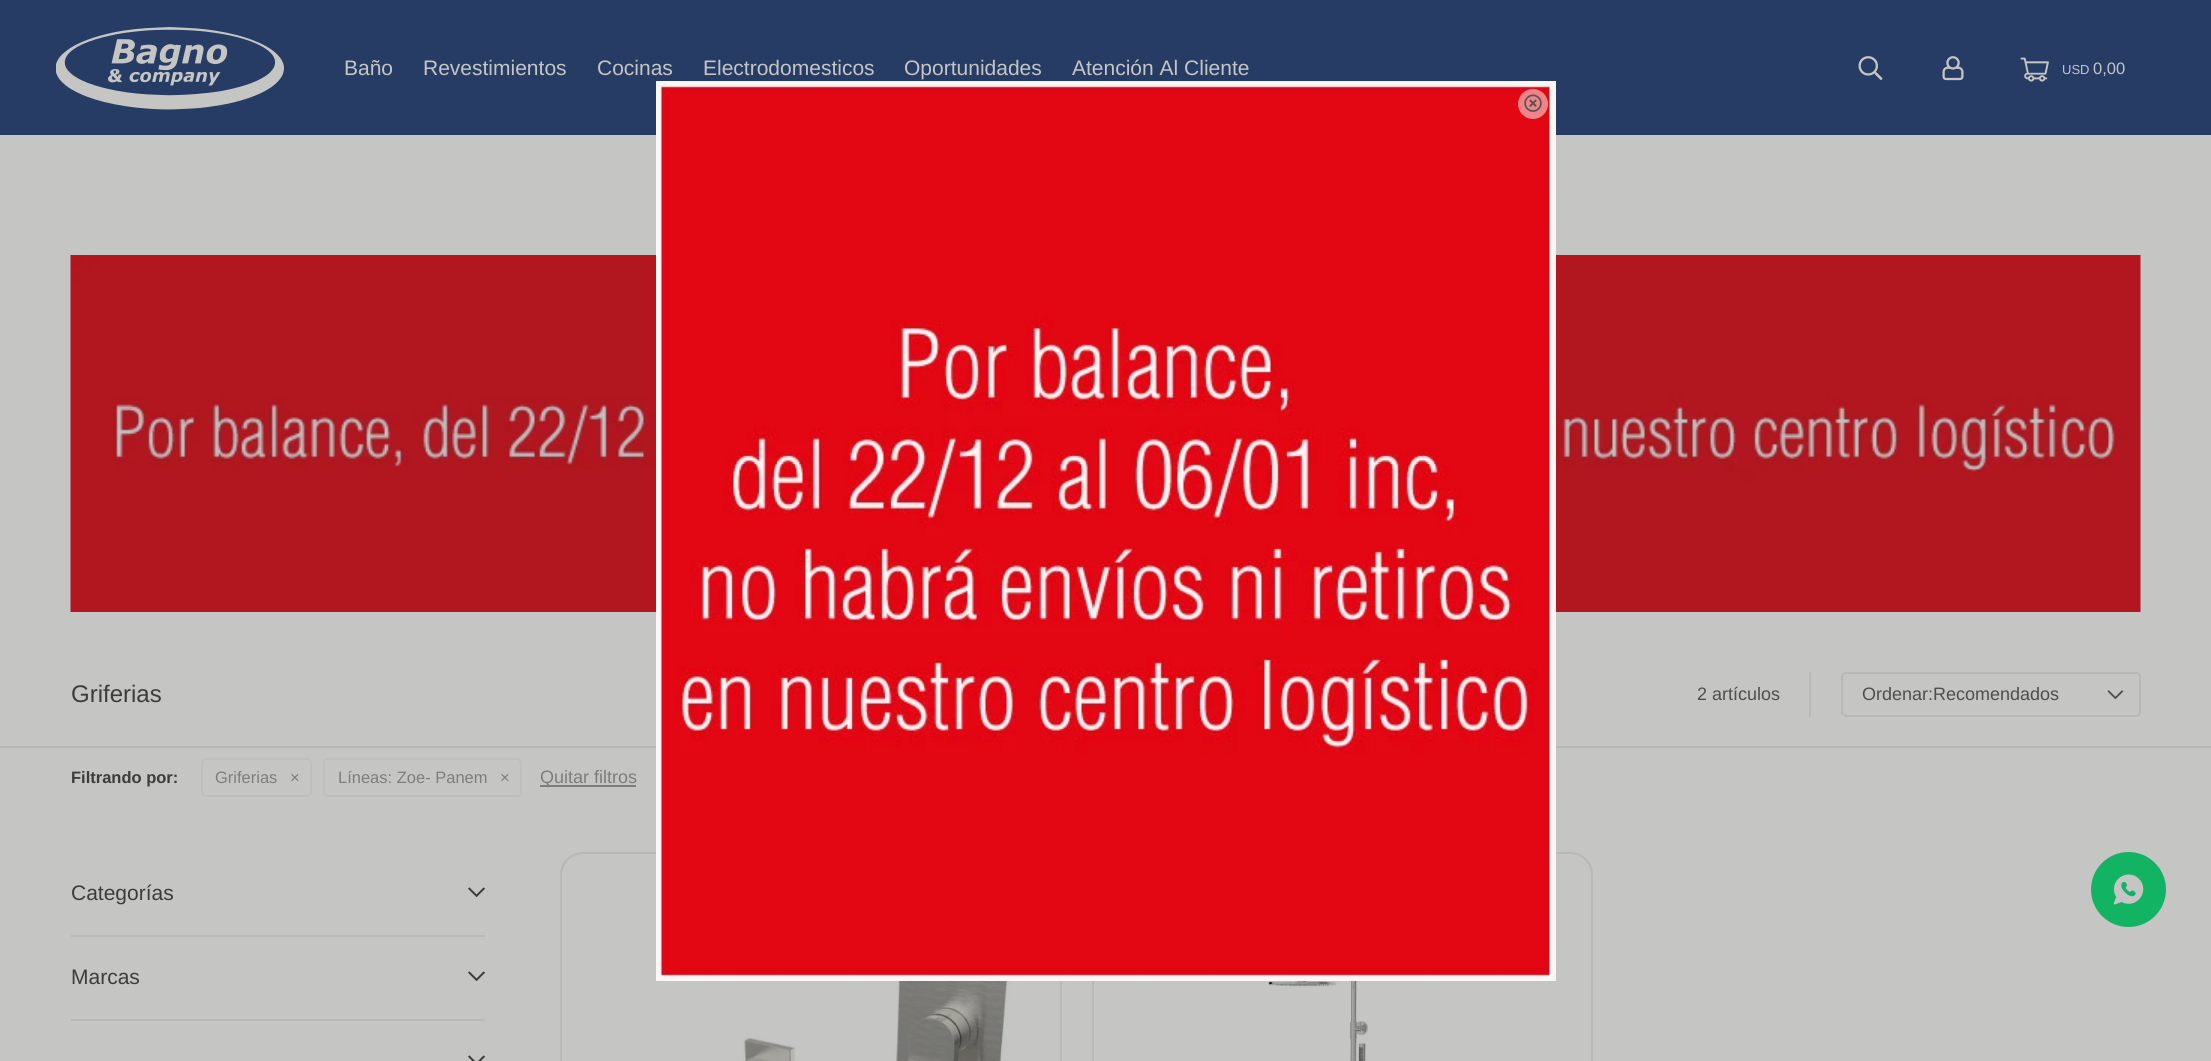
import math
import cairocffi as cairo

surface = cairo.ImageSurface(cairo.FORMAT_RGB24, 2211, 1061)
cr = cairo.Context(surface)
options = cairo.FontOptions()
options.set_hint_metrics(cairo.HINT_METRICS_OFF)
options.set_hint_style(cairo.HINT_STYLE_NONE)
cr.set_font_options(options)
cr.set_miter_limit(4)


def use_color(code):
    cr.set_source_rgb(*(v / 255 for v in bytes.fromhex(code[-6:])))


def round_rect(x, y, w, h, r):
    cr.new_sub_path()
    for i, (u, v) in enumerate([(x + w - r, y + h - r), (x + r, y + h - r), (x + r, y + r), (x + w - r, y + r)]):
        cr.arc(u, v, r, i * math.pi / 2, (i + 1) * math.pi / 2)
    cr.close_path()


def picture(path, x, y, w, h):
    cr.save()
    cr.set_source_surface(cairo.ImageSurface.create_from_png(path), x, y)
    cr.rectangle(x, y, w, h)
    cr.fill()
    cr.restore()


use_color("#c5c5c4")
cr.paint()
use_color("#263c65")
cr.rectangle(0, 0, 2211, 135)
cr.fill()
picture("img1.png", 56, 27, 228, 83)
cr.select_font_face("Liberation Sans")
cr.set_font_size(21)
use_color("#c5c5c4")
cr.move_to(344, 75)
cr.show_text("Baño")
cr.move_to(423, 75)
cr.show_text("Revestimientos")
cr.move_to(597, 75)
cr.show_text("Cocinas")
cr.move_to(703, 75)
cr.show_text("Electrodomesticos")
cr.move_to(904, 75)
cr.show_text("Oportunidades")
cr.move_to(1072, 75)
cr.show_text("Atención Al Cliente")
picture("img2.png", 1858, 56, 25, 24)
picture("img3.png", 1942, 56, 22, 25)
picture("img4.png", 2020, 57, 29, 25)
cr.set_font_size(13)
cr.move_to(2062, 74)
cr.show_text("USD")
cr.set_font_size(16.5)
cr.move_to(2093, 74)
cr.show_text("0,00")
picture("img5.png", 70, 255, 2071, 357)
cr.set_font_size(24)
use_color("#3c3c3b")
cr.move_to(71, 702)
cr.show_text("Griferias")
cr.set_font_size(18)
use_color("#4e4e4d")
cr.move_to(1697, 700)
cr.show_text("2 artículos")
use_color("#b8b8b8")
cr.rectangle(1809, 672, 2, 45)
cr.fill()
picture("img6.png", 2107, 690, 17, 10)
round_rect(1842, 673, 298, 43, 4)
cr.stroke()
use_color("#4e4e4d")
cr.move_to(1862, 700)
cr.show_text("Ordenar:Recomendados")
use_color("#b8b8b8")
cr.rectangle(0, 746, 2211, 2)
cr.fill()
cr.select_font_face("Liberation Sans", cairo.FONT_SLANT_NORMAL, cairo.FONT_WEIGHT_BOLD)
cr.set_font_size(16.5)
use_color("#3c3c3b")
cr.move_to(71, 783)
cr.show_text("Filtrando por:")
round_rect(202, 759, 109, 37, 4)
use_color("#bebebe")
cr.stroke()
cr.select_font_face("Liberation Sans")
use_color("#7d7d7d")
cr.move_to(215, 783)
cr.show_text("Griferias")
cr.move_to(290, 783)
cr.show_text("×")
round_rect(324, 759, 197, 37, 4)
use_color("#bebebe")
cr.stroke()
use_color("#7d7d7d")
cr.move_to(338, 783)
cr.show_text("Líneas: Zoe- Panem")
cr.move_to(500, 783)
cr.show_text("×")
cr.rectangle(540, 785, 96, 2)
cr.fill()
cr.set_font_size(18)
cr.move_to(540, 783)
cr.show_text("Quitar filtros")
cr.set_font_size(21)
use_color("#3c3c3b")
cr.move_to(71, 900)
cr.show_text("Categorías")
picture("img7.png", 468, 887, 17, 10)
use_color("#b8b8b8")
cr.rectangle(71, 935, 414, 2)
cr.fill()
use_color("#3c3c3b")
cr.move_to(71, 984)
cr.show_text("Marcas")
picture("img7.png", 468, 971, 17, 10)
use_color("#b8b8b8")
cr.rectangle(71, 1019, 414, 2)
cr.fill()
picture("img8.png", 468, 1055, 17, 6)
picture("img9.png", 742, 981, 273, 80)
round_rect(561, 853, 500, 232, 22)
cr.stroke()
picture("img10.png", 1268, 981, 100, 80)
round_rect(1093, 853, 499, 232, 22)
cr.stroke()
picture("img11.png", 656, 81, 900, 900)
cr.set_source_rgba(1, 1, 1, 0.5)
cr.arc(1533, 104, 15, 0, 2 * math.pi)
cr.fill()
picture("img12.png", 1524, 94, 18, 18)
use_color("#13b364")
cr.arc(2128.5, 889.5, 37.5, 0, 2 * math.pi)
cr.fill()
picture("img13.png", 2113, 874, 31, 31)
surface.write_to_png("result.png")
